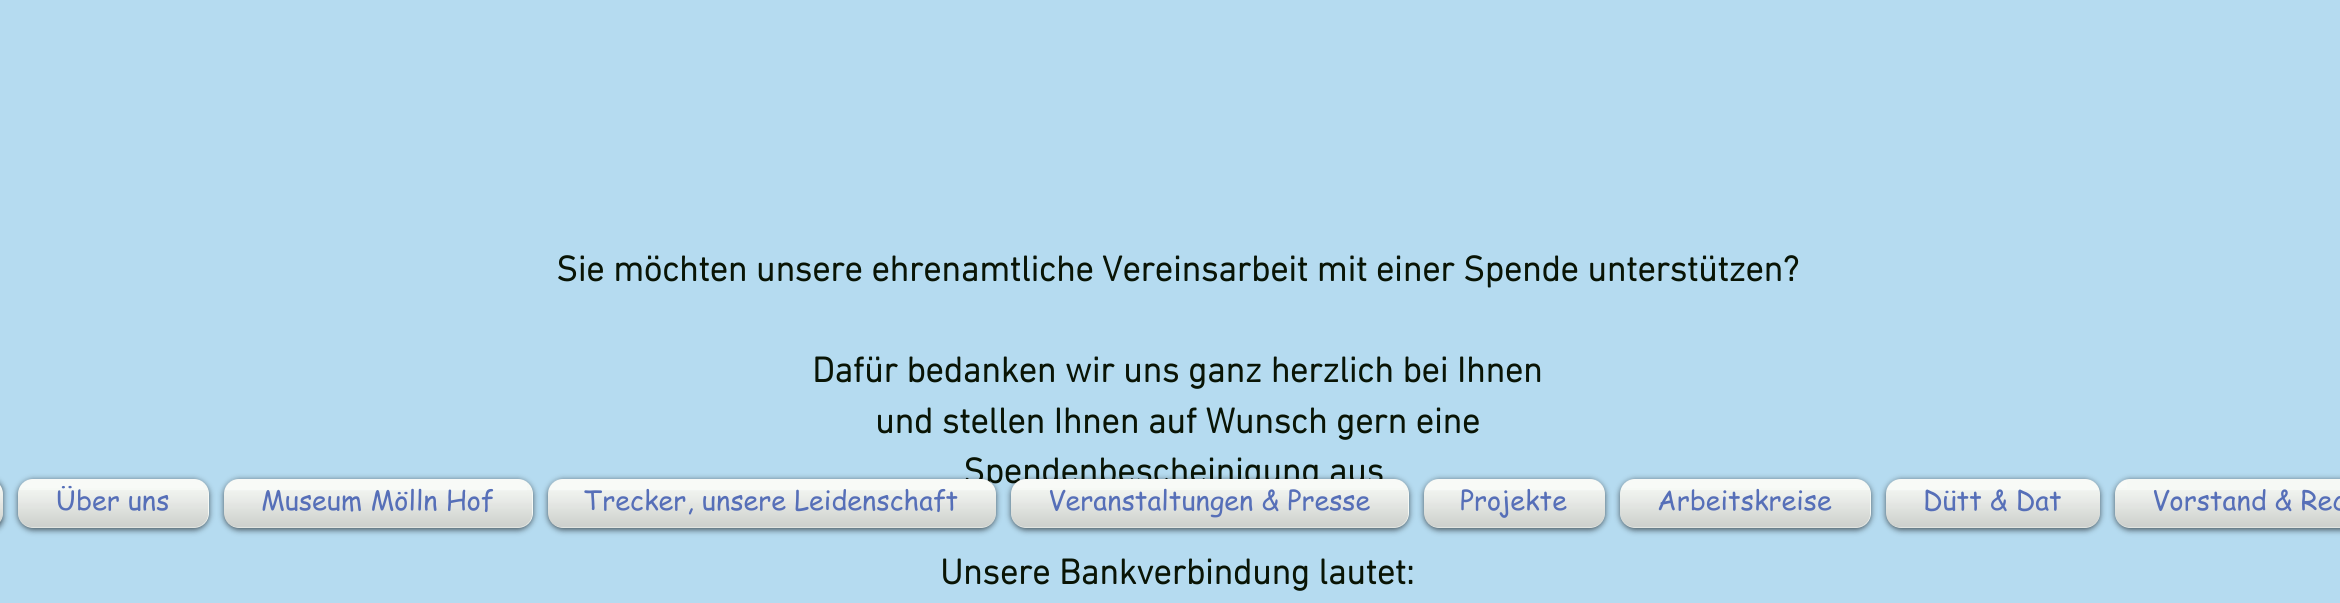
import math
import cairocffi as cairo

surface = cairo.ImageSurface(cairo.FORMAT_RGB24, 2340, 603)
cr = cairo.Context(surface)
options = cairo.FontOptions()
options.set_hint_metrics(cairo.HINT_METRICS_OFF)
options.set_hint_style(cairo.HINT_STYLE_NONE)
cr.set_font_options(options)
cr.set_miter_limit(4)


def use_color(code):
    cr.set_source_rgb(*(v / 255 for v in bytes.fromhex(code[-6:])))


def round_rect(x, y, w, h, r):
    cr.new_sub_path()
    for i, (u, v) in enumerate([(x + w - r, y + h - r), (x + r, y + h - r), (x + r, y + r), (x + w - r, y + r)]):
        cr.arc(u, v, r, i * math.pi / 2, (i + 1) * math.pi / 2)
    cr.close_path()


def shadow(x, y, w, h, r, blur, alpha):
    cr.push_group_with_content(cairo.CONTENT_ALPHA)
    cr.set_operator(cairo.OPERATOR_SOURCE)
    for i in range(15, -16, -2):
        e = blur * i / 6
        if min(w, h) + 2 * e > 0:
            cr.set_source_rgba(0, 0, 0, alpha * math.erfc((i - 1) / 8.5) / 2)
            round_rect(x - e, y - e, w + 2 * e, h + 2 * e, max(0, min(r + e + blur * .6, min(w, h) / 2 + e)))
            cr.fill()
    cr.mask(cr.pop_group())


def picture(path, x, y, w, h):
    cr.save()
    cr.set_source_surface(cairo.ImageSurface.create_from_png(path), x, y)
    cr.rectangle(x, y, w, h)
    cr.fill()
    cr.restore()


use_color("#b5dbf0")
cr.paint()
cr.select_font_face("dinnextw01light", cairo.FONT_SLANT_NORMAL, cairo.FONT_WEIGHT_BOLD)
cr.set_font_size(36)
use_color("#091405")
cr.move_to(556, 281)
cr.show_text("Sie möchten unsere ehrenamtliche Vereinsarbeit mit einer Spende unterstützen?")
cr.move_to(812, 382)
cr.show_text("Dafür bedanken wir uns ganz herzlich bei Ihnen")
cr.move_to(875, 433)
cr.show_text("und stellen Ihnen auf Wunsch gern eine")
cr.move_to(963, 483)
cr.show_text("Spendenbescheinigung aus")
cr.move_to(940, 584)
cr.show_text("Unsere Bankverbindung lautet:")
use_color("#000000")
shadow(-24, 480, 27, 50, 15, 3, 0.6)
use_color("#f6f9f5")
round_rect(-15, 479, 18, 49, 15)
cr.fill()
picture("img1.png", 0, 485, 2, 3)
picture("img2.png", 0, 490, 3, 32)
use_color("#000000")
shadow(18, 480, 191, 50, 15, 3, 0.6)
use_color("#f6f9f5")
round_rect(18, 479, 191, 49, 15)
cr.fill()
picture("img3.png", 19, 479, 184, 9)
picture("img4.png", 18, 490, 190, 38)
cr.select_font_face("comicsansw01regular")
cr.set_font_size(27)
use_color("#566fb8")
cr.move_to(56, 510)
cr.show_text("Über uns")
use_color("#000000")
shadow(224, 480, 309, 50, 15, 3, 0.6)
use_color("#f6f9f5")
round_rect(224, 479, 309, 49, 15)
cr.fill()
picture("img5.png", 224, 479, 303, 12)
picture("img6.png", 224, 490, 308, 38)
use_color("#566fb8")
cr.move_to(261, 510)
cr.show_text("Museum Mölln Hof")
use_color("#000000")
shadow(548, 480, 448, 50, 15, 3, 0.6)
use_color("#f6f9f5")
round_rect(548, 479, 448, 49, 15)
cr.fill()
picture("img7.png", 548, 479, 447, 12)
picture("img8.png", 548, 490, 448, 38)
use_color("#566fb8")
cr.move_to(584, 510)
cr.show_text("Trecker, unsere Leidenschaft")
use_color("#000000")
shadow(1011, 480, 398, 50, 15, 3, 0.6)
use_color("#f6f9f5")
round_rect(1011, 479, 398, 49, 15)
cr.fill()
picture("img9.png", 1012, 479, 391, 9)
picture("img10.png", 1011, 490, 397, 38)
use_color("#566fb8")
cr.move_to(1048, 510)
cr.show_text("Veranstaltungen & Presse")
use_color("#000000")
shadow(1424, 480, 181, 50, 15, 3, 0.6)
use_color("#f6f9f5")
round_rect(1424, 479, 181, 49, 15)
cr.fill()
picture("img11.png", 1424, 479, 180, 12)
picture("img12.png", 1424, 490, 181, 38)
use_color("#566fb8")
cr.move_to(1460, 510)
cr.show_text("Projekte")
use_color("#000000")
shadow(1620, 480, 251, 50, 15, 3, 0.6)
use_color("#f6f9f5")
round_rect(1620, 479, 251, 49, 15)
cr.fill()
picture("img13.png", 1621, 479, 244, 9)
picture("img14.png", 1620, 490, 250, 38)
use_color("#566fb8")
cr.move_to(1657, 510)
cr.show_text("Arbeitskreise")
use_color("#000000")
shadow(1886, 480, 214, 50, 15, 3, 0.6)
use_color("#f6f9f5")
round_rect(1886, 479, 214, 49, 15)
cr.fill()
picture("img15.png", 1886, 479, 213, 12)
picture("img16.png", 1886, 490, 214, 38)
use_color("#566fb8")
cr.move_to(1923, 510)
cr.show_text("Dütt & Dat")
use_color("#000000")
shadow(2115, 480, 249, 50, 15, 3, 0.6)
use_color("#f6f9f5")
round_rect(2115, 479, 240, 49, 15)
cr.fill()
picture("img17.png", 2116, 479, 11, 9)
picture("img18.png", 2115, 490, 225, 38)
use_color("#566fb8")
cr.move_to(2152, 510)
cr.show_text("Vorstand & Rec")
surface.write_to_png("result.png")
